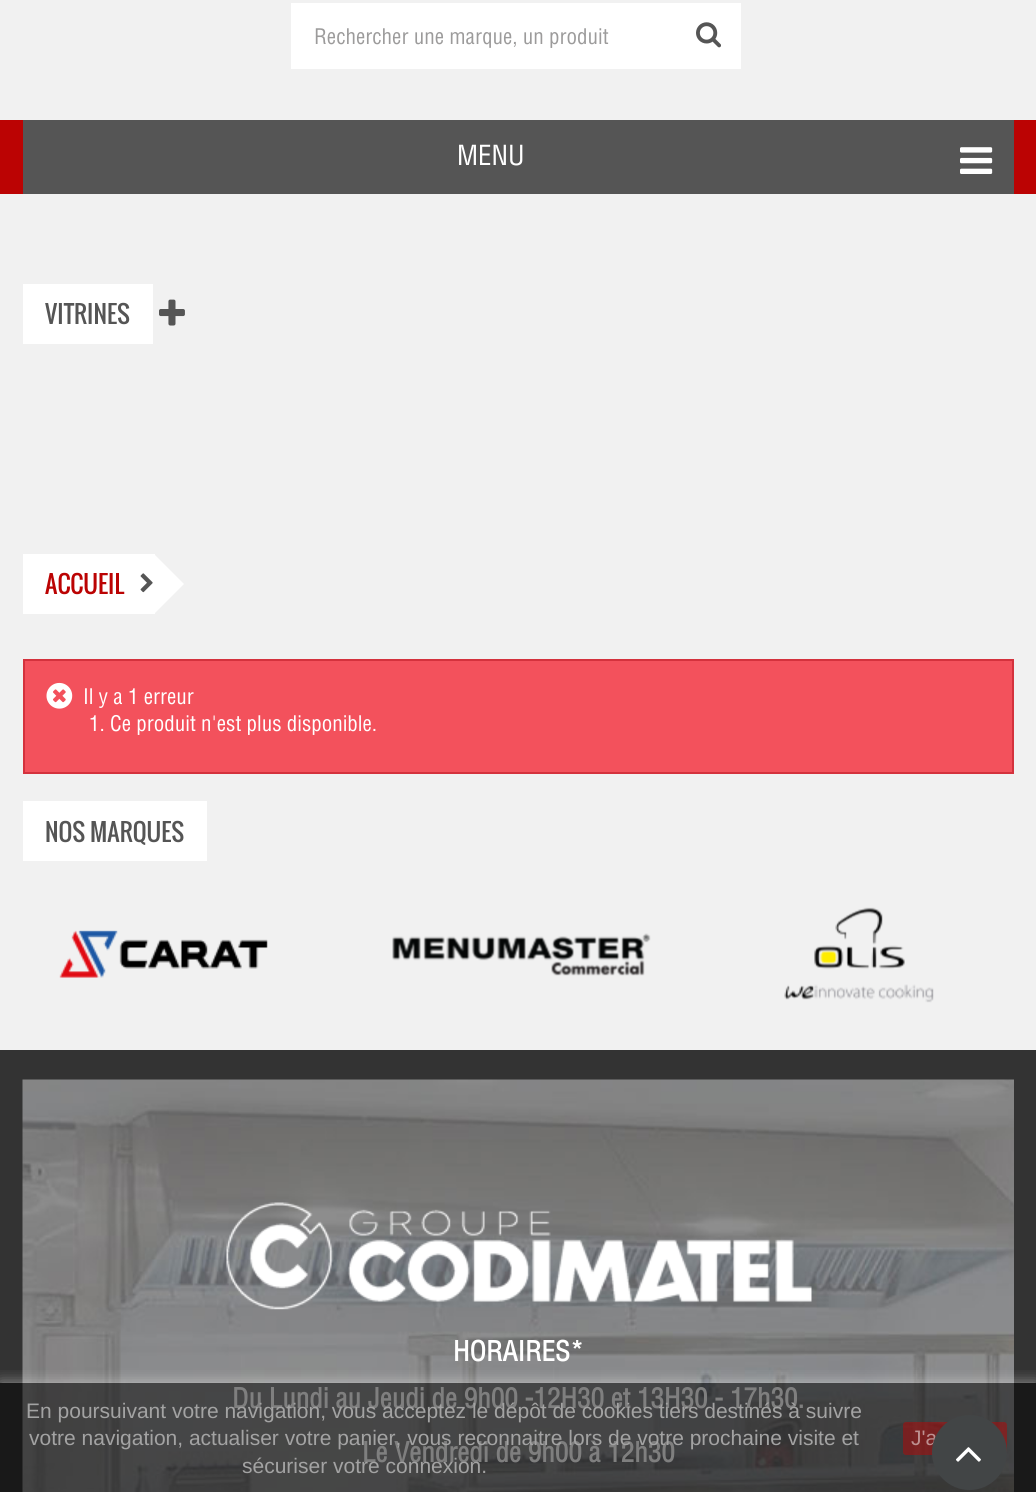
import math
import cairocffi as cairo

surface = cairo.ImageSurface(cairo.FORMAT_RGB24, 1036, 1492)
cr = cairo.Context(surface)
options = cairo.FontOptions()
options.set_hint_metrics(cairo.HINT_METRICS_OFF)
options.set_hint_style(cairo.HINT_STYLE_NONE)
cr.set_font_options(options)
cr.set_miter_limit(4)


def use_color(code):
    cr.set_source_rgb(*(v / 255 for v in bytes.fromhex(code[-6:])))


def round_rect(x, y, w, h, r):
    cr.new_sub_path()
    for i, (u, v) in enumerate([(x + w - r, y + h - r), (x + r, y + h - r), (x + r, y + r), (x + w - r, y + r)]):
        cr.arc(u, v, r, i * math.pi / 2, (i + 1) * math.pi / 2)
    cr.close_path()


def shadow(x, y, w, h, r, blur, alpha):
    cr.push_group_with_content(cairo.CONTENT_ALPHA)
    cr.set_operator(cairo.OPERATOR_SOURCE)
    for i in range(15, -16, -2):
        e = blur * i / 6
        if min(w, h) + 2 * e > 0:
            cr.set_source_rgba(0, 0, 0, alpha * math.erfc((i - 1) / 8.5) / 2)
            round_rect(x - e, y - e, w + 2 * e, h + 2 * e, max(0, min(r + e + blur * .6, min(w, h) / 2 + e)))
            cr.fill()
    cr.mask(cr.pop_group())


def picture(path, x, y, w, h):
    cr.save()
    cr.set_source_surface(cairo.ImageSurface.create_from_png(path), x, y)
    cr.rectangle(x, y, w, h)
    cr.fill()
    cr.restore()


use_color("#f1f1f1")
cr.paint()
use_color("#ffffff")
cr.rectangle(291, 3, 450, 66)
cr.fill()
cr.select_font_face("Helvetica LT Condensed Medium")
cr.set_font_size(21)
use_color("#9c9b9b")
cr.move_to(314, 44)
cr.show_text("Rechercher une marque, un produit")
picture("img1.png", 696, 22, 25, 26)
use_color("#bb0303")
cr.rectangle(0, 120, 1036, 74)
cr.fill()
use_color("#555555")
cr.rectangle(23, 120, 991, 74)
cr.fill()
cr.set_font_size(27)
use_color("#ffffff")
cr.move_to(457, 165)
cr.show_text("MENU")
picture("img2.png", 960, 147, 33, 27)
cr.rectangle(23, 284, 130, 60)
cr.fill()
cr.select_font_face("Oswald")
cr.set_font_size(24)
use_color("#555555")
cr.move_to(45, 324)
cr.show_text("VITRINES")
picture("img3.png", 159, 299, 26, 27)
use_color("#ffffff")
cr.rectangle(23, 554, 132, 60)
cr.fill()
use_color("#bb0303")
cr.move_to(45, 594)
cr.show_text("ACCUEIL")
picture("img4.png", 140, 573, 13, 20)
use_color("#ffffff")
cr.new_path()
cr.move_to(154, 614)
cr.line_to(154, 554)
cr.line_to(184, 584)
cr.close_path()
cr.fill()
use_color("#f3515c")
cr.rectangle(24, 660, 989, 113)
cr.fill_preserve()
use_color("#d4323d")
cr.stroke()
picture("img5.png", 46, 682, 27, 27)
cr.select_font_face("Helvetica LT Condensed Medium")
cr.set_font_size(21)
use_color("#ffffff")
cr.move_to(83, 704)
cr.show_text("Il y a 1 erreur")
cr.move_to(89, 731)
cr.show_text("1. Ce produit n'est plus disponible.")
cr.rectangle(23, 801, 184, 60)
cr.fill()
cr.select_font_face("Oswald")
cr.set_font_size(24)
use_color("#555555")
cr.move_to(45, 842)
cr.show_text("NOS MARQUES")
picture("img6.png", 59, 930, 209, 48)
picture("img7.png", 392, 933, 259, 43)
picture("img8.png", 784, 907, 150, 96)
use_color("#333333")
cr.rectangle(0, 1050, 1036, 442)
cr.fill()
picture("img9.png", 22, 1079, 992, 413)
picture("img10.png", 226, 1202, 586, 108)
cr.select_font_face("Helvetica LT Condensed", cairo.FONT_SLANT_NORMAL, cairo.FONT_WEIGHT_BOLD)
cr.set_font_size(27)
use_color("#ffffff")
cr.move_to(453, 1361)
cr.show_text("HORAIRES*")
cr.move_to(232, 1408)
cr.show_text("Du Lundi au Jeudi de 9h00 -12H30 et 13H30 - 17h30.")
cr.move_to(362, 1462)
cr.show_text("Le Vendredi de 9h00 à 12h30")
cr.save()
cr.rectangle(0, 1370, 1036, 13)
cr.clip()
use_color("#ffffff")
shadow(0, 1383, 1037, 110, 0, 7.5, 0.5)
cr.restore()
cr.set_source_rgba(0, 0, 0, 0.5)
cr.rectangle(0, 1383, 1036, 109)
cr.fill()
cr.select_font_face("Liberation Sans")
cr.set_font_size(21)
use_color("#a3a3a3")
cr.move_to(26, 1418)
cr.show_text("En poursuivant votre navigation, vous acceptez le dépôt de cookies tiers destinés à suivre")
cr.move_to(29, 1445)
cr.show_text("votre navigation, actualiser votre panier, vous reconnaitre lors de votre prochaine visite et")
cr.move_to(242, 1473)
cr.show_text("sécuriser votre connexion.")
cr.set_source_rgba(0.722, 0.024, 0.024, 0.5)
round_rect(903, 1422, 104, 33, 3)
cr.fill()
use_color("#bd9191")
cr.move_to(911, 1445)
cr.show_text("J'a")
use_color("#424546")
cr.new_path()
cr.arc(969.5, 1452.5, 37.5, 0, 2 * math.pi)
cr.fill()
picture("img11.png", 956, 1447, 25, 15)
surface.write_to_png("result.png")
